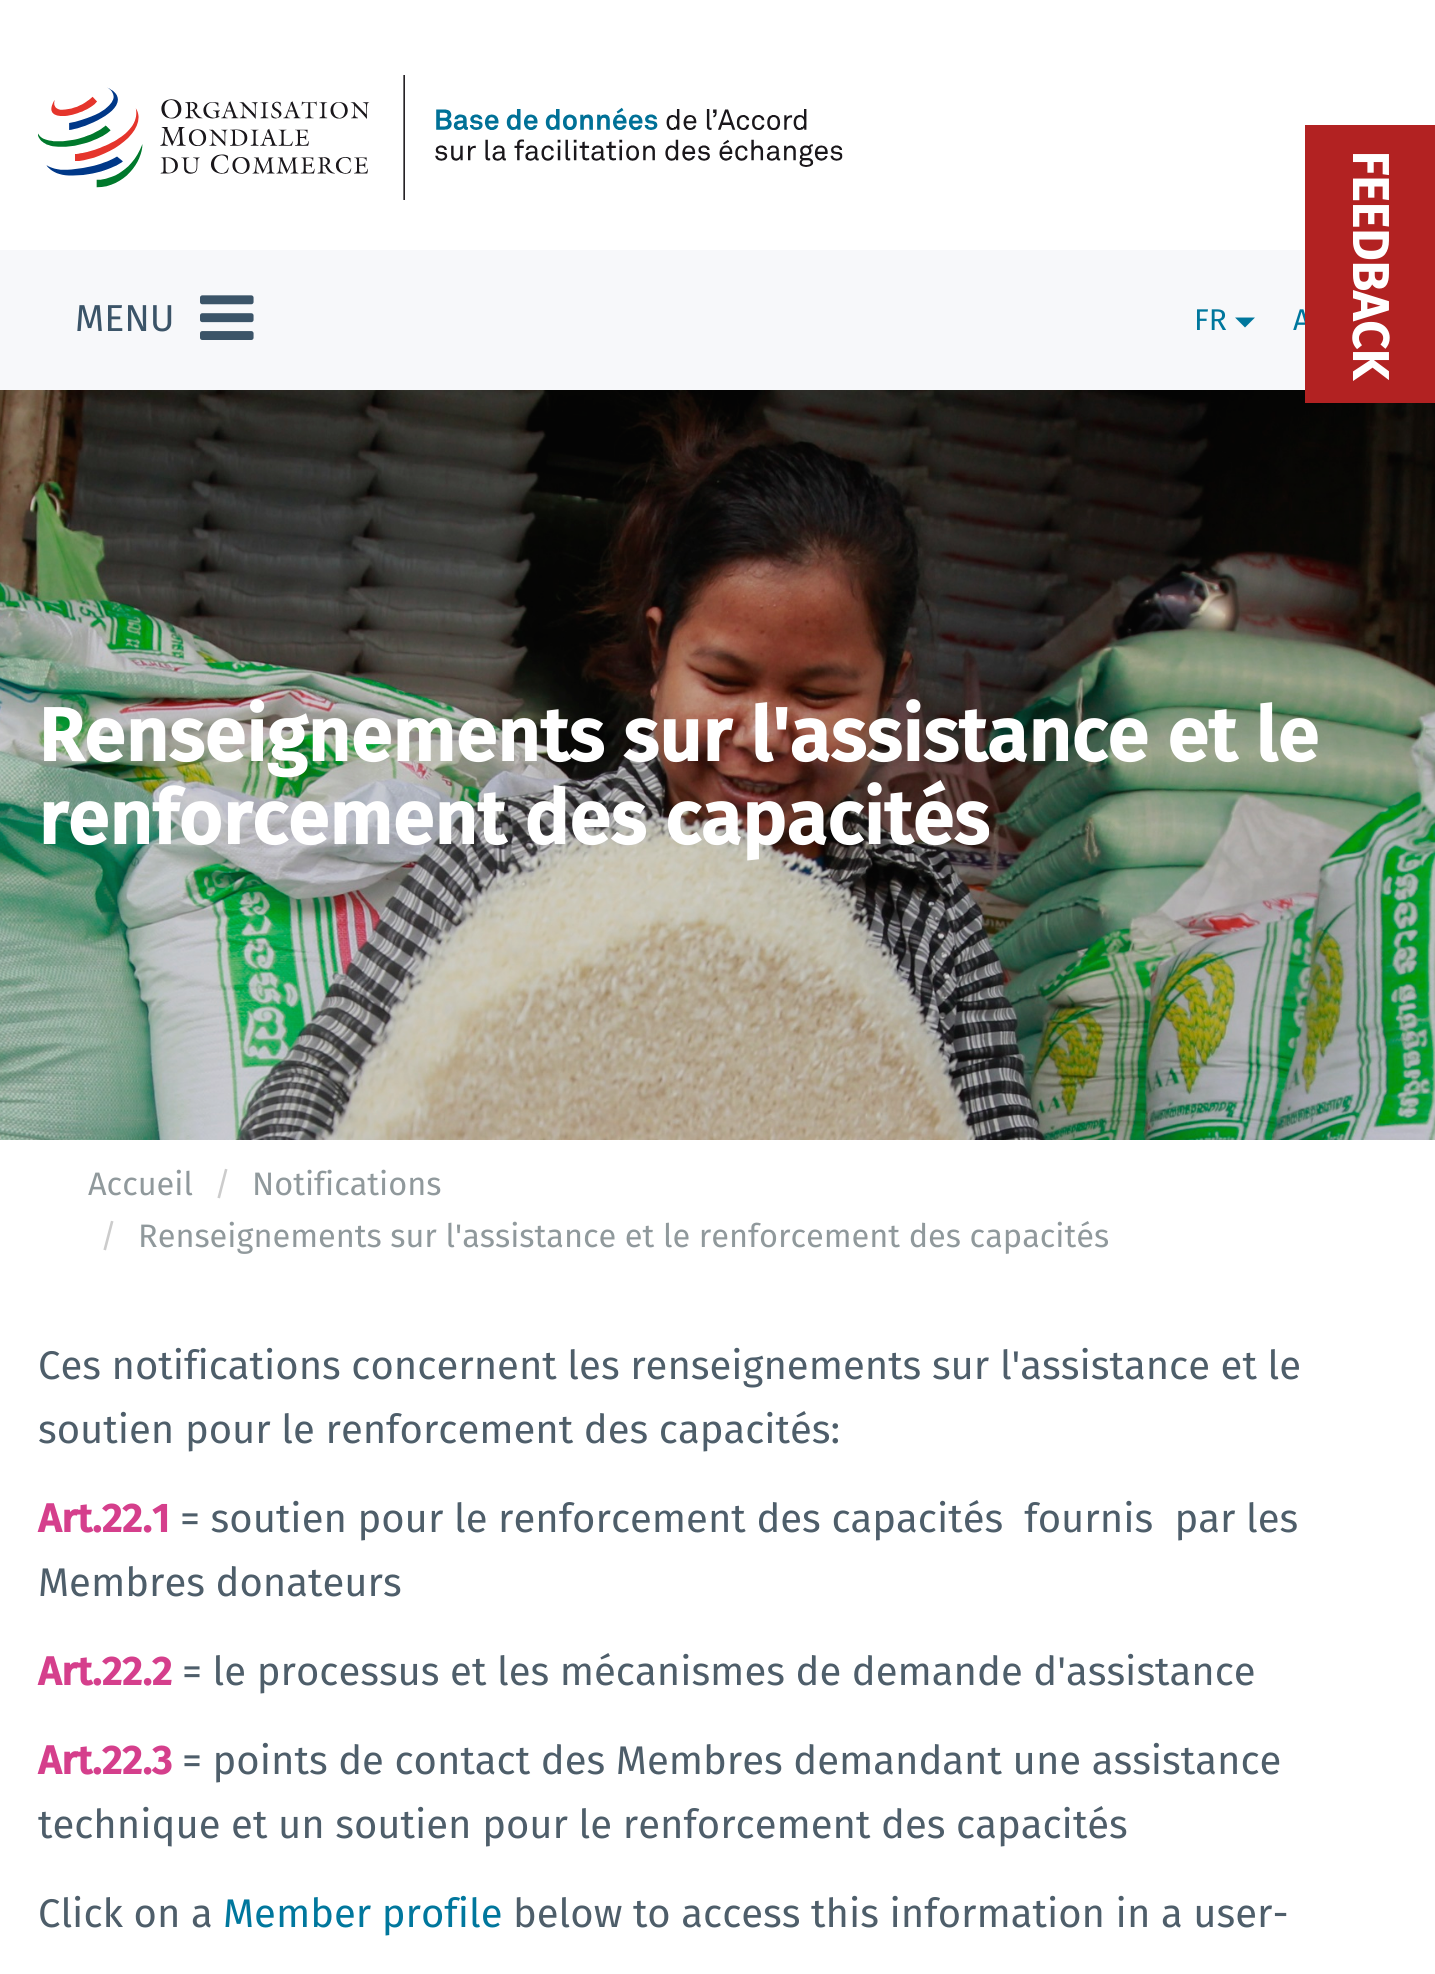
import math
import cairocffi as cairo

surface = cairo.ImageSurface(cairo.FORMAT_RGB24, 1435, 1974)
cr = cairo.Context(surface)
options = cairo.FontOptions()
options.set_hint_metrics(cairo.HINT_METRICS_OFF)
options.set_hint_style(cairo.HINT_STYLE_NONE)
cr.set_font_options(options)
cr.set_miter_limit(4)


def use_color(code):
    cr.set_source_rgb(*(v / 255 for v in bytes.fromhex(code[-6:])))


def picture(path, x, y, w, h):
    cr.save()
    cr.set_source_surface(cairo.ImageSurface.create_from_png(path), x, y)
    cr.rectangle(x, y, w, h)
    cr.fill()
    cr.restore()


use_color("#ffffff")
cr.paint()
use_color("#f7f8fa")
cr.rectangle(0, 250, 1305, 140)
cr.fill()
cr.select_font_face("Fira Sans")
cr.set_font_size(30)
use_color("#00779d")
cr.move_to(1293, 330)
cr.show_text("A")
picture("img3.png", 0, 390, 1435, 750)
use_color("#b22222")
cr.rectangle(1305, 125, 130, 278)
cr.fill()
cr.select_font_face("Fira Sans", cairo.FONT_SLANT_NORMAL, cairo.FONT_WEIGHT_BOLD)
cr.set_font_size(50)
use_color("#ffffff")
cr.save()
cr.translate(1353, 150)
cr.rotate(90 * math.pi / 180)
cr.move_to(0, 0)
cr.show_text("FEEDBACK")
cr.restore()
picture("img1.png", 38, 75, 805, 125)
cr.select_font_face("Fira Sans")
cr.set_font_size(37.5)
use_color("#3b5468")
cr.move_to(75, 331)
cr.show_text("MENU")
picture("img2.png", 200, 295, 54, 45)
cr.set_font_size(30)
use_color("#00779d")
cr.move_to(1194, 330)
cr.show_text("FR")
cr.new_path()
cr.move_to(1235, 317.5)
cr.line_to(1255, 317.5)
cr.line_to(1245, 327.5)
cr.close_path()
cr.fill()
cr.select_font_face("Fira Sans", cairo.FONT_SLANT_NORMAL, cairo.FONT_WEIGHT_BOLD)
cr.set_font_size(75)
use_color("#ffffff")
cr.move_to(38, 761)
cr.show_text("Renseignements sur l'assistance et le")
cr.move_to(38, 844)
cr.show_text("renforcement des capacités")
cr.select_font_face("Fira Sans")
cr.set_font_size(32.5)
use_color("#90999c")
cr.move_to(88, 1195)
cr.show_text("Accueil")
use_color("#cccccc")
cr.move_to(214, 1195)
cr.show_text("/")
use_color("#90999c")
cr.move_to(252, 1195)
cr.show_text("Notifications")
use_color("#cccccc")
cr.move_to(100, 1247)
cr.show_text("/")
use_color("#90999c")
cr.move_to(138, 1247)
cr.show_text("Renseignements sur l'assistance et le renforcement des capacités")
cr.set_font_size(40)
use_color("#4e5e6a")
cr.move_to(38, 1379)
cr.show_text("Ces notifications concernent les renseignements sur l'assistance et le")
cr.move_to(38, 1443)
cr.show_text("soutien pour le renforcement des capacités:")
cr.select_font_face("Fira Sans", cairo.FONT_SLANT_NORMAL, cairo.FONT_WEIGHT_BOLD)
use_color("#d53f8c")
cr.move_to(38, 1532)
cr.show_text("Art.22.1")
cr.select_font_face("Fira Sans")
use_color("#4e5e6a")
cr.move_to(180, 1532)
cr.show_text("= soutien pour le renforcement des capacités  fournis  par les")
cr.move_to(38, 1596)
cr.show_text("Membres donateurs")
cr.select_font_face("Fira Sans", cairo.FONT_SLANT_NORMAL, cairo.FONT_WEIGHT_BOLD)
use_color("#d53f8c")
cr.move_to(38, 1685)
cr.show_text("Art.22.2")
cr.select_font_face("Fira Sans")
use_color("#4e5e6a")
cr.move_to(182, 1685)
cr.show_text("= le processus et les mécanismes de demande d'assistance")
cr.select_font_face("Fira Sans", cairo.FONT_SLANT_NORMAL, cairo.FONT_WEIGHT_BOLD)
use_color("#d53f8c")
cr.move_to(38, 1774)
cr.show_text("Art.22.3")
cr.select_font_face("Fira Sans")
use_color("#4e5e6a")
cr.move_to(182, 1774)
cr.show_text("= points de contact des Membres demandant une assistance")
cr.move_to(38, 1838)
cr.show_text("technique et un soutien pour le renforcement des capacités")
cr.move_to(38, 1927)
cr.show_text("Click on a")
use_color("#00779d")
cr.move_to(223, 1927)
cr.show_text("Member profile")
use_color("#4e5e6a")
cr.move_to(513, 1927)
cr.show_text("below to access this information in a user-")
surface.write_to_png("result.png")
